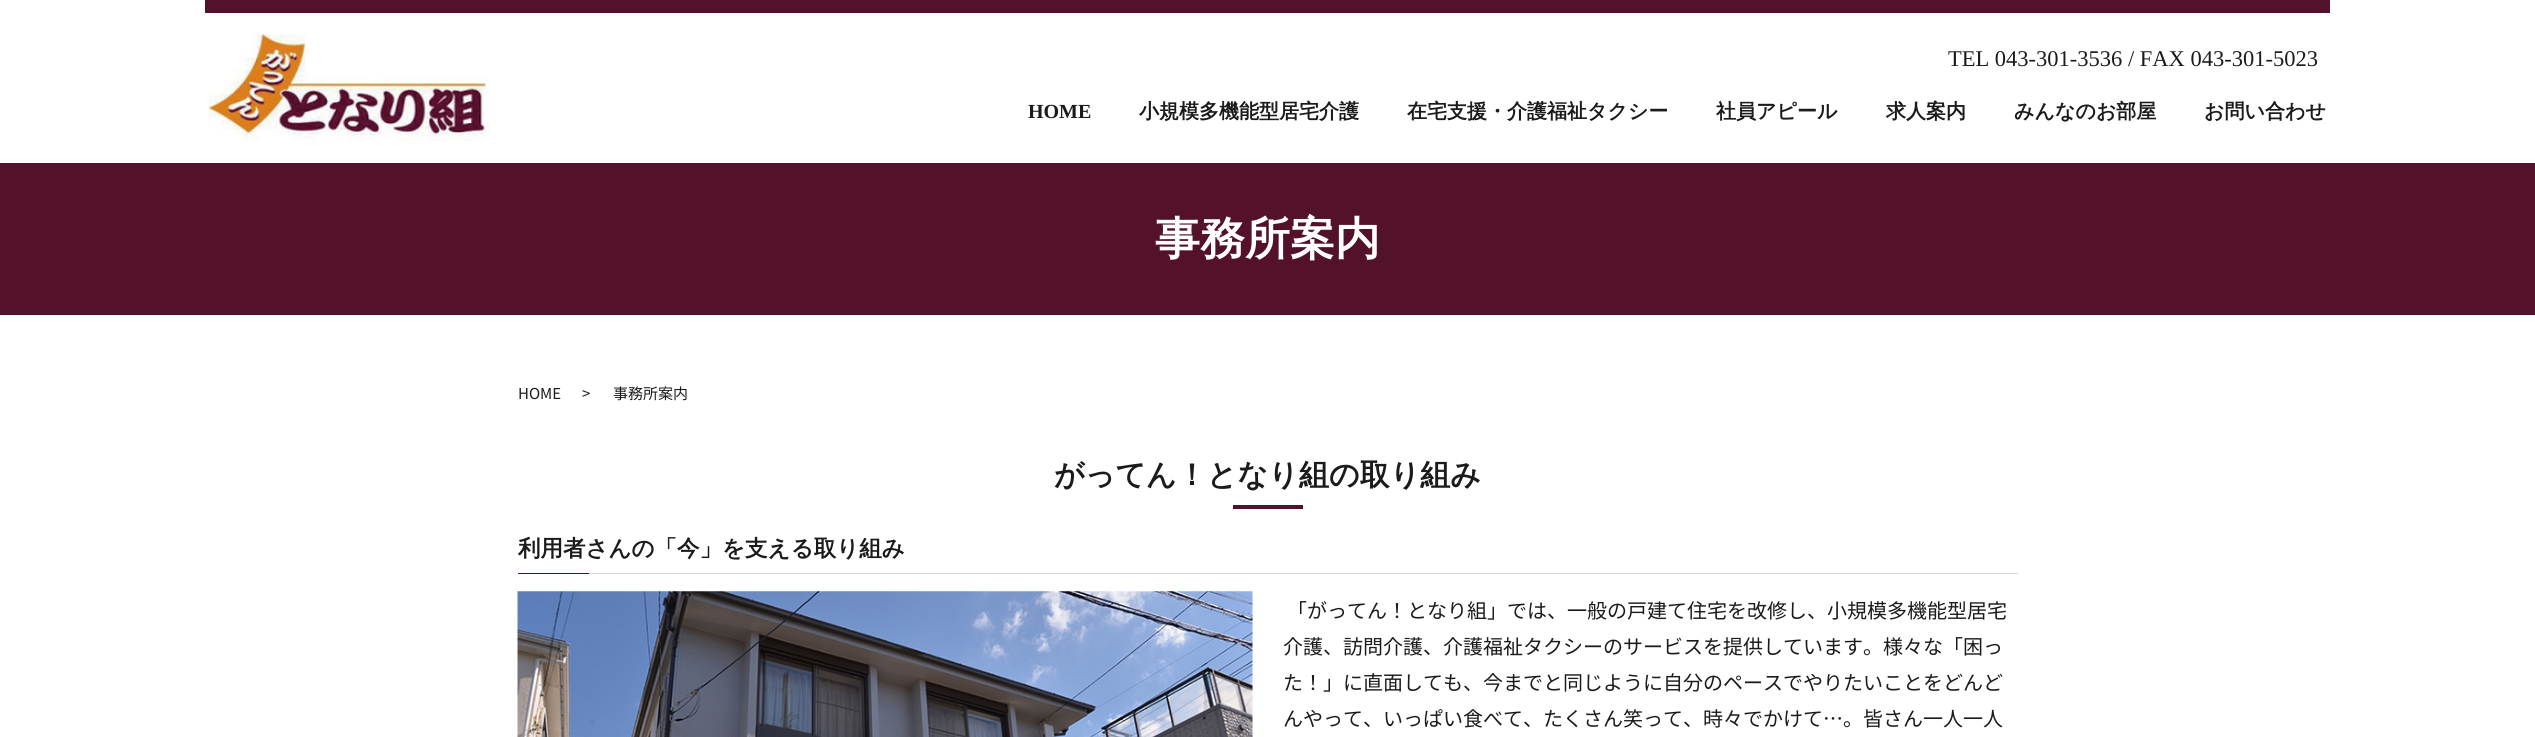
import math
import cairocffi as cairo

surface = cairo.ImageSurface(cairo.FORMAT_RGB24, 2535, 737)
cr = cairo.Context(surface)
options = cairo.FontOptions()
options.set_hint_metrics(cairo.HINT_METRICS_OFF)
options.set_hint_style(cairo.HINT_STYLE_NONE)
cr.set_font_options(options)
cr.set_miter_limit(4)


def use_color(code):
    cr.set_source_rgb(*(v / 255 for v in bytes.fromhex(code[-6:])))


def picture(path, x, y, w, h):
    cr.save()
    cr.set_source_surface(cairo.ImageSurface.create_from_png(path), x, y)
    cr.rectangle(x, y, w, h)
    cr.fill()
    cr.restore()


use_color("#ffffff")
cr.paint()
use_color("#53112c")
cr.rectangle(205, 0, 2125, 13)
cr.fill()
picture("img1.png", 208, 34, 282, 107)
cr.select_font_face("Liberation Serif")
cr.set_font_size(22.5)
use_color("#1b1b1b")
cr.move_to(1948, 66)
cr.show_text("TEL 043-301-3536 / FAX 043-301-5023")
cr.select_font_face("Liberation Serif", cairo.FONT_SLANT_NORMAL, cairo.FONT_WEIGHT_BOLD)
cr.set_font_size(20)
cr.move_to(1028, 118)
cr.show_text("HOME")
cr.select_font_face("WenQuanYi Zen Hei", cairo.FONT_SLANT_NORMAL, cairo.FONT_WEIGHT_BOLD)
cr.move_to(1139, 118)
cr.show_text("小規模多機能型居宅介護")
cr.move_to(1407, 118)
cr.show_text("在宅支援・介護福祉タクシー")
cr.move_to(1716, 118)
cr.show_text("社員アピール")
cr.move_to(1886, 118)
cr.show_text("求人案内")
cr.move_to(2014, 118)
cr.show_text("みんなのお部屋")
cr.move_to(2204, 118)
cr.show_text("お問い合わせ")
use_color("#53112c")
cr.rectangle(0, 163, 2535, 152)
cr.fill()
cr.set_font_size(45)
use_color("#ffffff")
cr.move_to(1155, 254)
cr.show_text("事務所案内")
cr.select_font_face("Noto Sans JP")
cr.set_font_size(15)
use_color("#1b1b1b")
cr.move_to(518, 399)
cr.show_text("HOME")
cr.move_to(582, 399)
cr.show_text(">")
cr.move_to(613, 399)
cr.show_text("事務所案内")
cr.select_font_face("WenQuanYi Zen Hei", cairo.FONT_SLANT_NORMAL, cairo.FONT_WEIGHT_BOLD)
cr.set_font_size(30)
cr.move_to(1054, 485)
cr.show_text("がってん！となり組の取り組み")
use_color("#53112c")
cr.rectangle(1233, 505, 70, 4)
cr.fill()
cr.set_font_size(22.5)
use_color("#1b1b1b")
cr.move_to(518, 556)
cr.show_text("利用者さんの「今」を支える取り組み")
use_color("#53112c")
cr.rectangle(518, 573, 71, 1)
cr.fill()
use_color("#d7d7d7")
cr.rectangle(589, 573, 1429, 1)
cr.fill()
picture("img2.png", 517, 591, 736, 146)
cr.select_font_face("Noto Sans JP")
cr.set_font_size(20)
use_color("#1b1b1b")
cr.move_to(1287, 618)
cr.show_text("「がってん！となり組」では、一般の戸建て住宅を改修し、小規模多機能型居宅")
cr.move_to(1283, 654)
cr.show_text("介護、訪問介護、介護福祉タクシーのサービスを提供しています。様々な「困っ")
cr.move_to(1283, 690)
cr.show_text("た！」に直面しても、今までと同じように自分のペースでやりたいことをどんど")
cr.move_to(1283, 726)
cr.show_text("んやって、いっぱい食べて、たくさん笑って、時々でかけて…。皆さん一人一人")
surface.write_to_png("result.png")
